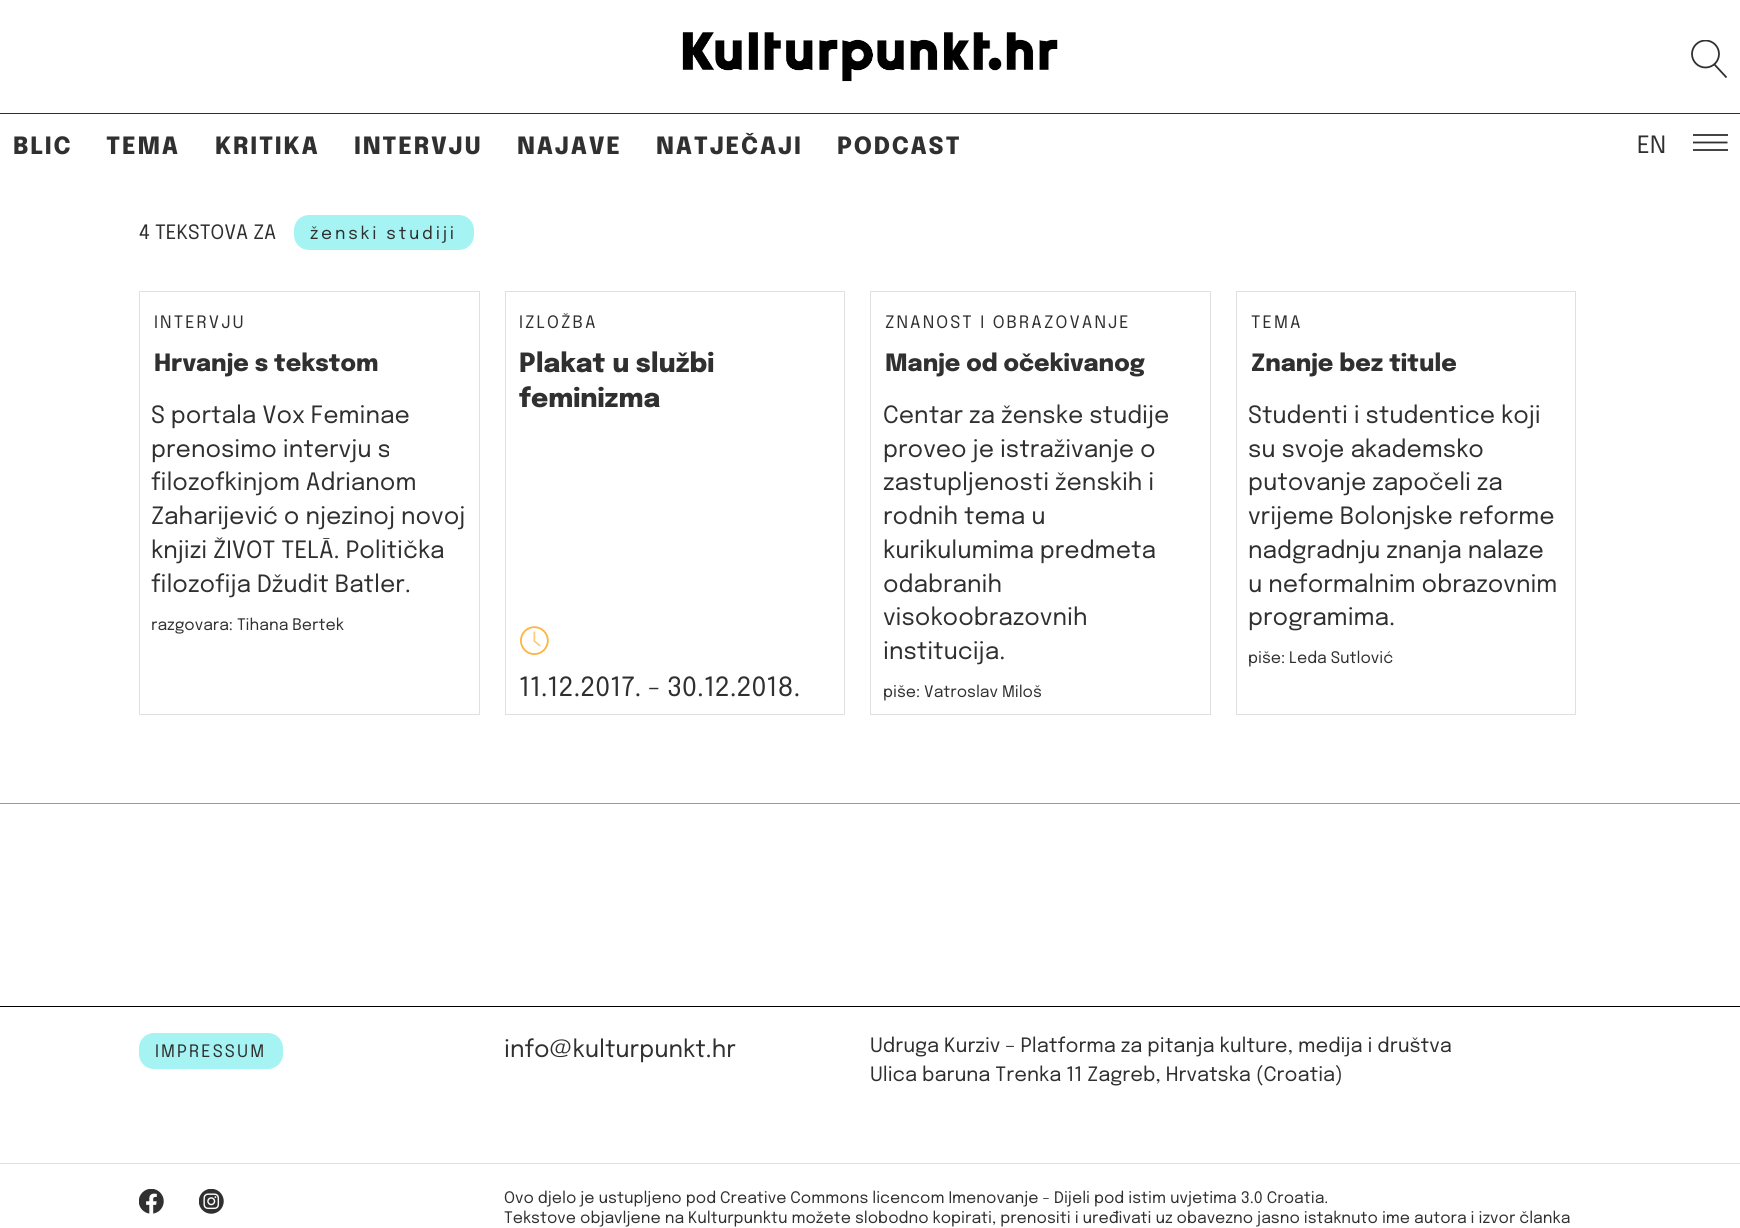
import math
import cairocffi as cairo

surface = cairo.ImageSurface(cairo.FORMAT_RGB24, 1740, 1228)
cr = cairo.Context(surface)
options = cairo.FontOptions()
options.set_hint_metrics(cairo.HINT_METRICS_OFF)
options.set_hint_style(cairo.HINT_STYLE_NONE)
cr.set_font_options(options)
cr.set_miter_limit(4)


def use_color(code):
    cr.set_source_rgb(*(v / 255 for v in bytes.fromhex(code[-6:])))


def spaced_text(x, y, s, letter, word):
    cr.move_to(x, y)
    for ch in s:
        cr.show_text(ch)
        cr.rel_move_to(letter + word * (ch == ' '), 0)


def round_rect(x, y, w, h, r):
    cr.new_sub_path()
    for i, (u, v) in enumerate([(x + w - r, y + h - r), (x + r, y + h - r), (x + r, y + r), (x + w - r, y + r)]):
        cr.arc(u, v, r, i * math.pi / 2, (i + 1) * math.pi / 2)
    cr.close_path()


def picture(path, x, y, w, h):
    cr.save()
    cr.set_source_surface(cairo.ImageSurface.create_from_png(path), x, y)
    cr.rectangle(x, y, w, h)
    cr.fill()
    cr.restore()


use_color("#ffffff")
cr.paint()
use_color("#303030")
cr.rectangle(0, 113, 1740, 1)
cr.fill()
cr.select_font_face("Epilogue ExtraBold")
cr.set_font_size(23.75)
spaced_text(13, 154, "BLIC", 1.75, 0)
spaced_text(106, 154, "TEMA", 1.75, 0)
spaced_text(215, 154, "KRITIKA", 1.75, 0)
spaced_text(354, 154, "INTERVJU", 1.75, 0)
spaced_text(517, 154, "NAJAVE", 1.75, 0)
spaced_text(656, 154, "NATJEČAJI", 1.75, 0)
spaced_text(837, 154, "PODCAST", 1.75, 0)
picture("img1.png", 682, 32, 376, 50)
cr.save()
cr.rectangle(1691, 40, 37, 39)
cr.clip()
cr.arc(1705.5, 54, 13.5, 0, 2 * math.pi)
cr.set_line_width(1.8)
cr.stroke()
cr.restore()
cr.new_path()
cr.move_to(1714, 64)
cr.line_to(1726.5, 77.5)
cr.set_line_width(1.8)
cr.stroke()
cr.select_font_face("Epilogue")
cr.move_to(1637, 153)
cr.show_text("EN")
picture("img2.png", 1693, 134, 35, 17)
cr.set_font_size(19.75)
cr.move_to(139, 239)
cr.show_text("4 TEKSTOVA ZA")
use_color("#a6f3f3")
round_rect(294, 215, 180, 35, 15)
cr.fill()
cr.set_font_size(17.1)
use_color("#303030")
spaced_text(310, 239, "ženski studiji", 2.8, 0)
cr.rectangle(139.5, 291.5, 340, 423)
use_color("#e0e0e0")
cr.set_line_width(1)
cr.stroke()
use_color("#303030")
spaced_text(154, 328, "INTERVJU", 2.1, 0)
cr.select_font_face("Epilogue ExtraBold")
cr.set_font_size(23.75)
cr.move_to(154, 371)
cr.show_text("Hrvanje s tekstom")
cr.select_font_face("Epilogue")
cr.move_to(151, 423)
cr.show_text("S portala Vox Feminae")
cr.move_to(151, 457)
cr.show_text("prenosimo intervju s")
cr.move_to(151, 490)
cr.show_text("filozofkinjom Adrianom")
cr.move_to(151, 524)
cr.show_text("Zaharijević o njezinoj novoj")
cr.move_to(151, 558)
cr.show_text("knjizi ŽIVOT TELĀ. Politička")
cr.move_to(151, 592)
cr.show_text("filozofija Džudit Batler.")
cr.set_font_size(15.85)
cr.move_to(151, 630)
cr.show_text("razgovara: Tihana Bertek")
cr.rectangle(505.5, 291.5, 339, 423)
use_color("#e0e0e0")
cr.stroke()
cr.set_font_size(17.1)
use_color("#303030")
spaced_text(519, 328, "IZLOŽBA", 2.1, 0)
cr.select_font_face("Epilogue ExtraBold")
cr.set_font_size(26.4)
cr.move_to(519, 372)
cr.show_text("Plakat u službi")
cr.move_to(519, 407)
cr.show_text("feminizma")
picture("img3.png", 520, 626, 29, 29)
cr.select_font_face("Epilogue")
cr.move_to(519, 696)
cr.show_text("11.12.2017. - 30.12.2018.")
cr.rectangle(870.5, 291.5, 340, 423)
use_color("#e0e0e0")
cr.stroke()
cr.set_font_size(17.1)
use_color("#303030")
spaced_text(885, 328, "ZNANOST I OBRAZOVANJE", 2.1, 0)
cr.select_font_face("Epilogue ExtraBold")
cr.set_font_size(23.75)
cr.move_to(885, 371)
cr.show_text("Manje od očekivanog")
cr.select_font_face("Epilogue")
cr.move_to(883, 423)
cr.show_text("Centar za ženske studije")
cr.move_to(883, 457)
cr.show_text("proveo je istraživanje o")
cr.move_to(883, 490)
cr.show_text("zastupljenosti ženskih i")
cr.move_to(883, 524)
cr.show_text("rodnih tema u")
cr.move_to(883, 558)
cr.show_text("kurikulumima predmeta")
cr.move_to(883, 592)
cr.show_text("odabranih")
cr.move_to(883, 625)
cr.show_text("visokoobrazovnih")
cr.move_to(883, 659)
cr.show_text("institucija.")
cr.set_font_size(15.85)
cr.move_to(883, 697)
cr.show_text("piše: Vatroslav Miloš")
cr.rectangle(1236.5, 291.5, 339, 423)
use_color("#e0e0e0")
cr.stroke()
cr.set_font_size(17.1)
use_color("#303030")
spaced_text(1251, 328, "TEMA", 2.1, 0)
cr.select_font_face("Epilogue ExtraBold")
cr.set_font_size(23.75)
cr.move_to(1251, 371)
cr.show_text("Znanje bez titule")
cr.select_font_face("Epilogue")
cr.move_to(1248, 423)
cr.show_text("Studenti i studentice koji")
cr.move_to(1248, 457)
cr.show_text("su svoje akademsko")
cr.move_to(1248, 490)
cr.show_text("putovanje započeli za")
cr.move_to(1248, 524)
cr.show_text("vrijeme Bolonjske reforme")
cr.move_to(1248, 558)
cr.show_text("nadgradnju znanja nalaze")
cr.move_to(1248, 592)
cr.show_text("u neformalnim obrazovnim")
cr.move_to(1248, 625)
cr.show_text("programima.")
cr.set_font_size(15.85)
cr.move_to(1248, 663)
cr.show_text("piše: Leda Sutlović")
use_color("#00dddd")
cr.rectangle(0, 803, 1740, 1)
cr.fill()
use_color("#000000")
cr.rectangle(0, 1006, 1740, 1)
cr.fill()
use_color("#a6f3f3")
round_rect(139, 1033, 144, 36, 15)
cr.fill()
cr.set_font_size(17.1)
use_color("#303030")
spaced_text(155, 1057, "IMPRESSUM", 2.1, 0)
cr.set_font_size(23.75)
cr.move_to(504, 1057)
cr.show_text("info@kulturpunkt.hr")
cr.set_font_size(19.75)
cr.move_to(870, 1052)
cr.show_text("Udruga Kurziv – Platforma za pitanja kulture, medija i društva")
cr.move_to(870, 1081)
cr.show_text("Ulica baruna Trenka 11 Zagreb, Hrvatska (Croatia)")
use_color("#e0e0e0")
cr.rectangle(0, 1163, 1740, 1)
cr.fill()
picture("img4.png", 139, 1189, 25, 25)
picture("img5.png", 199, 1189, 25, 25)
cr.set_font_size(15.85)
use_color("#303030")
cr.move_to(504, 1203)
cr.show_text("Ovo djelo je ustupljeno pod Creative Commons licencom Imenovanje - Dijeli pod istim uvjetima 3.0 Croatia.")
cr.move_to(504, 1223)
cr.show_text("Tekstove objavljene na Kulturpunktu možete slobodno kopirati, prenositi i uređivati uz obavezno jasno istaknuto ime autora i izvor članka")
surface.write_to_png("result.png")
